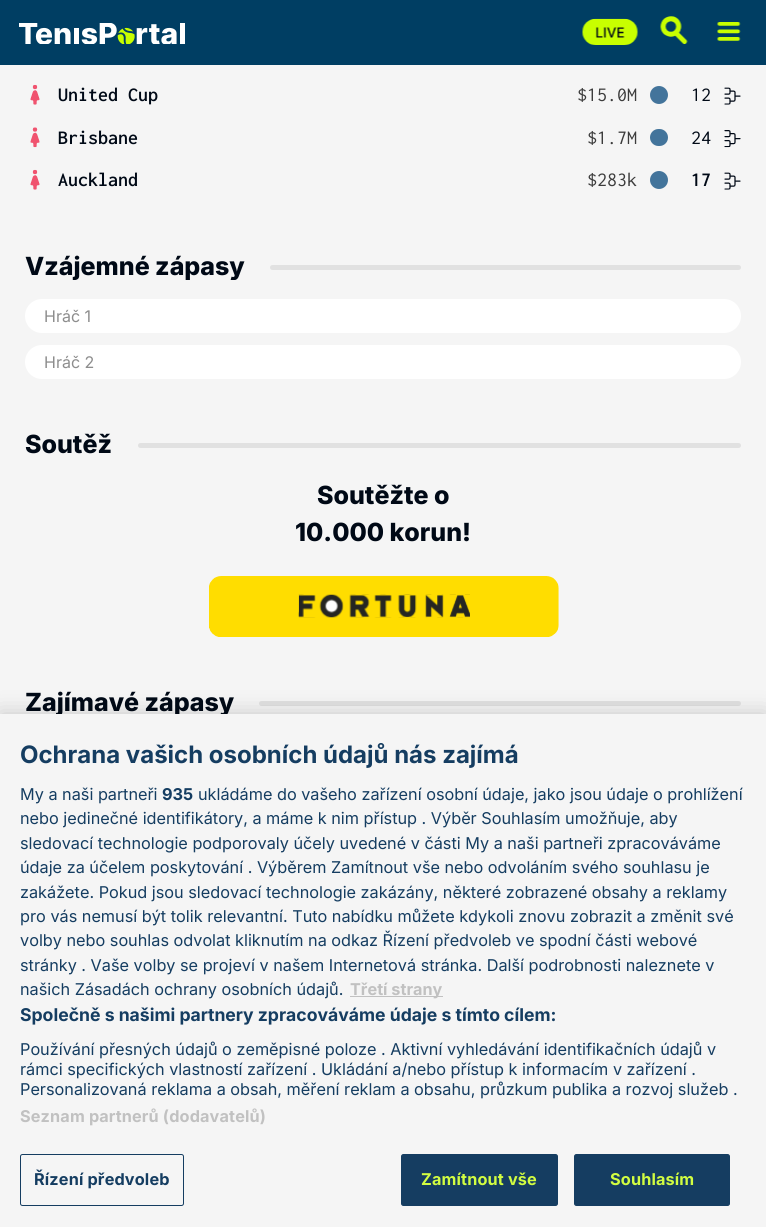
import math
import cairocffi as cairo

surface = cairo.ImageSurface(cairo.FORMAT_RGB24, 766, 1227)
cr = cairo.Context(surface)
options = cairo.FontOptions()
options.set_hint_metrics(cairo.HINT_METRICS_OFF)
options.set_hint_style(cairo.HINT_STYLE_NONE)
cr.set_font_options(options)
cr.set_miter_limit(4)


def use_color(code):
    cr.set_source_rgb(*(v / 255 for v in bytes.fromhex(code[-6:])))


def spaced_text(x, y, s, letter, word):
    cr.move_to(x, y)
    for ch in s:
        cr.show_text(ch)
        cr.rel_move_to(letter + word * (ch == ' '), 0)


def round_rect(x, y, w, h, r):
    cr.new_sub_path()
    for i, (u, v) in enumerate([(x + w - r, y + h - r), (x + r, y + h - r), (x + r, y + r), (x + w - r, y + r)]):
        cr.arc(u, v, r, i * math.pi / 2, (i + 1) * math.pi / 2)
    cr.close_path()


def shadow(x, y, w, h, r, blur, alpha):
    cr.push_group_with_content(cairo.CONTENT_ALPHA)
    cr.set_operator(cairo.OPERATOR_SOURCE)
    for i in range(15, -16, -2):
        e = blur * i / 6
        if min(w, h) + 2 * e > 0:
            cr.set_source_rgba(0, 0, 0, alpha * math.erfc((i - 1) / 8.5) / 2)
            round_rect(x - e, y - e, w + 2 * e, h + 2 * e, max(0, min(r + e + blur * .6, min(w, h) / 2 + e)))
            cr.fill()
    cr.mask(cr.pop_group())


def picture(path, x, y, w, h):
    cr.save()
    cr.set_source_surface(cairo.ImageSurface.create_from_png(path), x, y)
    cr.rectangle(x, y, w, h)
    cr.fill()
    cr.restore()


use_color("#f5f5f5")
cr.paint()
use_color("#003e63")
cr.rectangle(0, 0, 766, 65)
cr.fill()
picture("img1.png", 19, 23, 166, 21)
picture("img2.png", 582, 18, 56, 27)
picture("img3.png", 660, 16, 28, 28)
picture("img4.png", 717, 22, 24, 19)
picture("img5.png", 30, 84, 10, 21)
cr.select_font_face("Inconsolata SemiBold")
cr.set_font_size(20)
use_color("#000916")
cr.move_to(58, 101)
cr.show_text("United Cup")
cr.select_font_face("Inconsolata")
use_color("#3c3c3c")
cr.move_to(577, 101)
cr.show_text("$15.0M")
use_color("#43749b")
cr.new_path()
cr.arc(659, 95, 9, 0, 2 * math.pi)
cr.fill()
use_color("#000916")
cr.move_to(691, 101)
cr.show_text("12")
picture("img6.png", 724, 87, 17, 18)
picture("img7.png", 30, 127, 10, 21)
cr.select_font_face("Inconsolata SemiBold")
cr.move_to(58, 144)
cr.show_text("Brisbane")
cr.select_font_face("Inconsolata")
use_color("#3c3c3c")
cr.move_to(587, 144)
cr.show_text("$1.7M")
use_color("#43749b")
round_rect(650, 129, 18, 17, 8.5)
cr.fill()
use_color("#000916")
cr.move_to(691, 144)
cr.show_text("24")
picture("img8.png", 724, 130, 17, 18)
picture("img5.png", 30, 169, 10, 21)
cr.select_font_face("Inconsolata SemiBold")
cr.move_to(58, 186)
cr.show_text("Auckland")
cr.select_font_face("Inconsolata")
use_color("#3c3c3c")
cr.move_to(587, 186)
cr.show_text("$283k")
use_color("#43749b")
cr.new_path()
cr.arc(659, 180, 9, 0, 2 * math.pi)
cr.fill()
cr.select_font_face("Inconsolata SemiBold")
use_color("#000916")
cr.move_to(691, 186)
cr.show_text("17")
picture("img6.png", 724, 172, 17, 18)
cr.save()
cr.rectangle(25, 251, 716, 29)
cr.clip()
cr.select_font_face("Inter ExtraBold")
cr.set_font_size(25)
cr.move_to(25, 275)
cr.show_text("Vzájemné zápasy")
cr.restore()
use_color("#e1e1e1")
round_rect(270, 265, 471, 5, 2.5)
cr.fill()
use_color("#ffffff")
round_rect(25, 299, 716, 34, 17)
cr.fill()
cr.select_font_face("Inter")
cr.set_font_size(16)
use_color("#8d8d8d")
cr.move_to(44, 322)
cr.show_text("Hráč 1")
use_color("#ffffff")
round_rect(25, 345, 716, 34, 17)
cr.fill()
use_color("#8d8d8d")
cr.move_to(44, 368)
cr.show_text("Hráč 2")
cr.select_font_face("Inter ExtraBold")
cr.set_font_size(25)
use_color("#000916")
cr.move_to(25, 453)
cr.show_text("Soutěž")
use_color("#e1e1e1")
round_rect(138, 443, 603, 5, 2.5)
cr.fill()
use_color("#000916")
cr.move_to(317, 504)
cr.show_text("Soutěžte o")
cr.move_to(295, 541)
cr.show_text("10.000 korun!")
picture("img9.png", 209, 576, 350, 61)
cr.move_to(25, 711)
cr.show_text("Zajímavé zápasy")
use_color("#e1e1e1")
round_rect(259, 701, 482, 5, 2.5)
cr.fill()
use_color("#000000")
shadow(0, 714, 766, 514, 0, 11, 0.2)
use_color("#f5f5f5")
cr.rectangle(0, 714, 766, 513)
cr.fill()
cr.select_font_face("Inter", cairo.FONT_SLANT_NORMAL, cairo.FONT_WEIGHT_BOLD)
cr.set_font_size(24)
use_color("#153d61")
cr.move_to(20, 763)
cr.show_text("Ochrana vašich osobních údajů nás zajímá")
cr.select_font_face("Inter")
cr.set_font_size(16.25)
cr.move_to(20, 800)
cr.show_text("My a naši partneři")
cr.select_font_face("Inter", cairo.FONT_SLANT_NORMAL, cairo.FONT_WEIGHT_BOLD)
cr.move_to(162, 800)
cr.show_text("935")
cr.select_font_face("Inter")
cr.move_to(198, 800)
cr.show_text("ukládáme do vašeho zařízení osobní údaje, jako jsou údaje o prohlížení")
cr.move_to(20, 824)
cr.show_text("nebo jedinečné identifikátory, a máme k nim přístup . Výběr Souhlasím umožňuje, aby")
cr.move_to(20, 849)
cr.show_text("sledovací technologie podporovaly účely uvedené v části My a naši partneři zpracováváme")
cr.move_to(20, 873)
cr.show_text("údaje za účelem poskytování . Výběrem Zamítnout vše nebo odvoláním svého souhlasu je")
cr.move_to(20, 898)
cr.show_text("zakážete. Pokud jsou sledovací technologie zakázány, některé zobrazené obsahy a reklamy")
cr.move_to(20, 922)
cr.show_text("pro vás nemusí být tolik relevantní. Tuto nabídku můžete kdykoli znovu zobrazit a změnit své")
cr.move_to(20, 946)
cr.show_text("volby nebo souhlas odvolat kliknutím na odkaz Řízení předvoleb ve spodní části webové")
cr.move_to(20, 971)
cr.show_text("stránky . Vaše volby se projeví v našem Internetová stránka. Další podrobnosti naleznete v")
cr.move_to(20, 995)
cr.show_text("našich Zásadách ochrany osobních údajů.")
use_color("#c1c1c1")
cr.rectangle(350, 996, 93, 1)
cr.fill()
cr.select_font_face("Inter", cairo.FONT_SLANT_NORMAL, cairo.FONT_WEIGHT_BOLD)
cr.move_to(350, 995)
cr.show_text("Třetí strany")
cr.set_font_size(17.6)
use_color("#153d61")
cr.move_to(20, 1021)
cr.show_text("Společně s našimi partnery zpracováváme údaje s tímto cílem:")
cr.select_font_face("Inter")
cr.set_font_size(16.25)
cr.move_to(20, 1055)
cr.show_text("Používání přesných údajů o zeměpisné poloze . Aktivní vyhledávání identifikačních údajů v")
cr.move_to(20, 1075)
cr.show_text("rámci specifických vlastností zařízení . Ukládání a/nebo přístup k informacím v zařízení .")
cr.move_to(20, 1095)
cr.show_text("Personalizovaná reklama a obsah, měření reklam a obsahu, průzkum publika a rozvoj služeb .")
cr.select_font_face("Inter", cairo.FONT_SLANT_NORMAL, cairo.FONT_WEIGHT_BOLD)
use_color("#c1c1c1")
spaced_text(20, 1122, "Seznam partnerů (dodavatelů)", 0.15, 0)
round_rect(20.5, 1154.5, 163, 51, 2)
use_color("#153d61")
cr.set_line_width(1)
cr.stroke()
spaced_text(34, 1185, "Řízení předvoleb", 0.15, 0)
round_rect(401.5, 1154.5, 156, 51, 2)
cr.fill_preserve()
cr.stroke()
use_color("#d2fd41")
spaced_text(421, 1185, "Zamítnout vše", 0.15, 0)
use_color("#153d61")
round_rect(574.5, 1154.5, 155, 51, 2)
cr.fill_preserve()
cr.stroke()
use_color("#d2fd41")
spaced_text(610, 1185, "Souhlasím", 0.15, 0)
surface.write_to_png("result.png")
